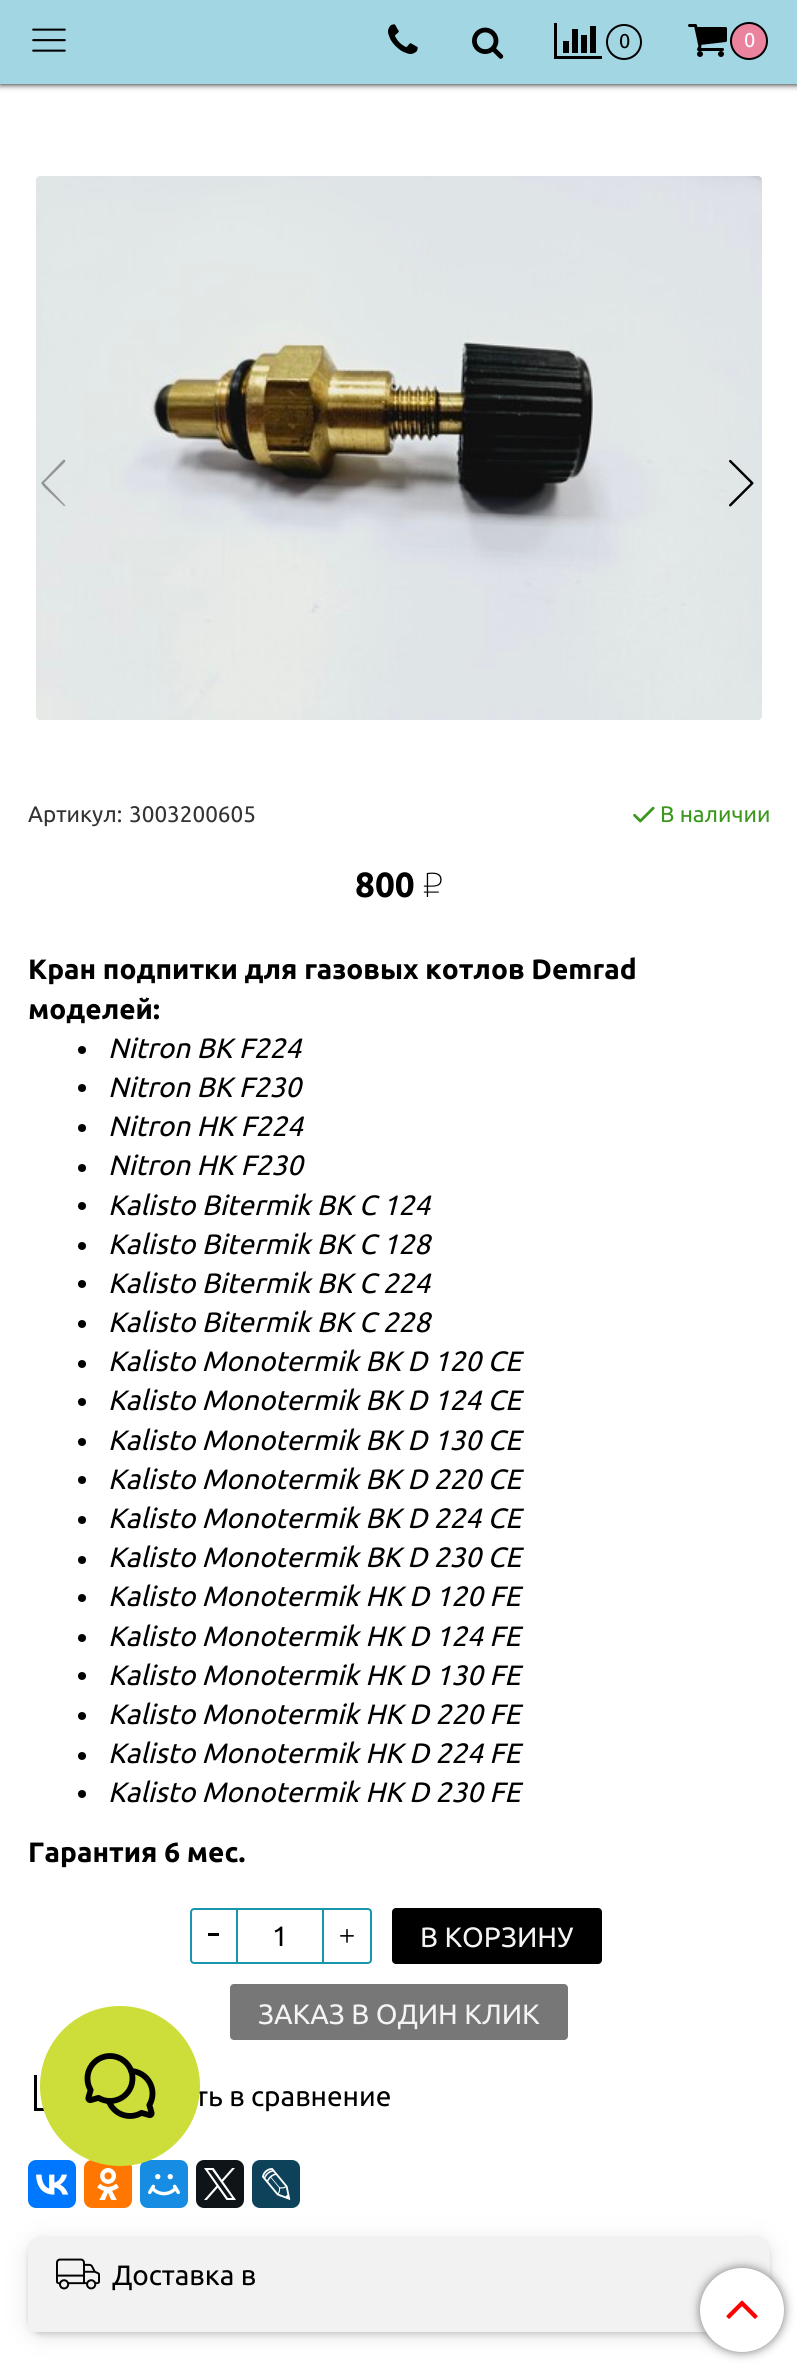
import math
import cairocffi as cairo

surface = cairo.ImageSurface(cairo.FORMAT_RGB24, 797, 2366)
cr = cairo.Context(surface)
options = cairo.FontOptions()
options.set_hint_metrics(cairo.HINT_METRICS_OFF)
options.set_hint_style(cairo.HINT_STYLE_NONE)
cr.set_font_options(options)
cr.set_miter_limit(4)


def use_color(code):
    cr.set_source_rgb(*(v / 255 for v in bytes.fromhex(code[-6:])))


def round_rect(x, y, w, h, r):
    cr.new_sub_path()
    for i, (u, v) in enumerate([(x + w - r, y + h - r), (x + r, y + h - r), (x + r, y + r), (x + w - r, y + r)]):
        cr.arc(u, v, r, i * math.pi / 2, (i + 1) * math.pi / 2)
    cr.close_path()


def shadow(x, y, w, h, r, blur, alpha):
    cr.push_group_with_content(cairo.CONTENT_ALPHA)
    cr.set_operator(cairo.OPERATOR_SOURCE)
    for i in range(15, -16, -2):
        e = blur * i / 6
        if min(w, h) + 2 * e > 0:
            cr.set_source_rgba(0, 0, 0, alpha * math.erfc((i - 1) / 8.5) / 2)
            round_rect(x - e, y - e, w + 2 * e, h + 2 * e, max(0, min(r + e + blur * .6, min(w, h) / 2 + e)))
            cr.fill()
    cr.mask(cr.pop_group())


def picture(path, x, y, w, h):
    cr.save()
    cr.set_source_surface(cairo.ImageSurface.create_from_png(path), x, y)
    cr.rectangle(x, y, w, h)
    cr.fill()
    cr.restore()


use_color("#ffffff")
cr.paint()
use_color("#000000")
shadow(0, 0, 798, 84, 0, 3.5, 1)
use_color("#a1d6e2")
cr.rectangle(0, 0, 797, 84)
cr.fill()
picture("img1.png", 32, 28, 34, 24)
picture("img2.png", 388, 24, 30, 30)
picture("img3.png", 472, 27, 32, 32)
picture("img4.png", 554, 23, 48, 36)
cr.arc(624, 42, 17, 0, 2 * math.pi)
use_color("#000000")
cr.stroke()
cr.select_font_face("Ubuntu")
cr.set_font_size(20)
cr.move_to(619, 48)
cr.show_text("0")
picture("img5.png", 688, 24, 39, 33)
use_color("#eb839f")
cr.arc(749, 41, 18, 0, 2 * math.pi)
cr.fill_preserve()
use_color("#000000")
cr.stroke()
use_color("#ffffff")
cr.move_to(744, 47)
cr.show_text("0")
picture("img6.png", 36, 176, 726, 544)
cr.set_source_rgba(0, 0, 0, 0.35)
cr.new_path()
cr.move_to(64, 506)
cr.curve_to(65, 506, 66, 505, 65, 505)
cr.line_to(44, 483)
cr.line_to(65, 462)
cr.curve_to(66, 461, 65, 459, 63, 460)
cr.line_to(45, 479)
cr.curve_to(40, 484, 40, 482, 45, 488)
cr.close_path()
cr.fill()
picture("img7.png", 729, 459, 25, 48)
cr.set_font_size(22.5)
use_color("#333333")
cr.move_to(28, 822)
cr.show_text("Артикул:")
cr.move_to(129, 822)
cr.show_text("3003200605")
picture("img8.png", 633, 806, 22, 17)
use_color("#3c981d")
cr.move_to(660, 822)
cr.show_text("В наличии")
cr.select_font_face("Ubuntu", cairo.FONT_SLANT_NORMAL, cairo.FONT_WEIGHT_BOLD)
cr.set_font_size(35)
use_color("#000000")
cr.move_to(355, 897)
cr.show_text("800")
cr.select_font_face("Ubuntu Thin")
cr.move_to(423, 897)
cr.show_text("₽")
cr.select_font_face("Ubuntu", cairo.FONT_SLANT_NORMAL, cairo.FONT_WEIGHT_BOLD)
cr.set_font_size(28)
cr.move_to(28, 979)
cr.show_text("Кран подпитки для газовых котлов Demrad")
cr.move_to(28, 1019)
cr.show_text("моделей:")
cr.new_path()
cr.arc(82, 1050, 4, 0, 2 * math.pi)
cr.fill()
cr.select_font_face("Ubuntu", cairo.FONT_SLANT_ITALIC)
cr.move_to(108, 1058)
cr.show_text("Nitron BK F224")
cr.new_path()
cr.arc(82, 1088, 4, 0, 2 * math.pi)
cr.fill()
cr.move_to(108, 1097)
cr.show_text("Nitron BK F230")
cr.new_path()
cr.arc(82, 1128, 4, 0, 2 * math.pi)
cr.fill()
cr.move_to(108, 1136)
cr.show_text("Nitron HK F224")
cr.new_path()
cr.arc(82, 1168, 4, 0, 2 * math.pi)
cr.fill()
cr.move_to(108, 1175)
cr.show_text("Nitron HK F230")
cr.new_path()
cr.arc(82, 1206, 4, 0, 2 * math.pi)
cr.fill()
cr.move_to(108, 1215)
cr.show_text("Kalisto Bitermik BK C 124")
cr.new_path()
cr.arc(82, 1246, 4, 0, 2 * math.pi)
cr.fill()
cr.move_to(108, 1254)
cr.show_text("Kalisto Bitermik BK C 128")
cr.new_path()
cr.arc(82, 1284, 4, 0, 2 * math.pi)
cr.fill()
cr.move_to(108, 1293)
cr.show_text("Kalisto Bitermik BK C 224")
cr.new_path()
cr.arc(82, 1324, 4, 0, 2 * math.pi)
cr.fill()
cr.move_to(108, 1332)
cr.show_text("Kalisto Bitermik BK C 228")
cr.new_path()
cr.arc(82, 1364, 4, 0, 2 * math.pi)
cr.fill()
cr.move_to(108, 1371)
cr.show_text("Kalisto Monotermik BK D 120 CE")
cr.new_path()
cr.arc(82, 1402, 4, 0, 2 * math.pi)
cr.fill()
cr.move_to(108, 1410)
cr.show_text("Kalisto Monotermik BK D 124 CE")
cr.new_path()
cr.arc(82, 1442, 4, 0, 2 * math.pi)
cr.fill()
cr.move_to(108, 1450)
cr.show_text("Kalisto Monotermik BK D 130 CE")
cr.new_path()
cr.arc(82, 1480, 4, 0, 2 * math.pi)
cr.fill()
cr.move_to(108, 1489)
cr.show_text("Kalisto Monotermik BK D 220 CE")
cr.new_path()
cr.arc(82, 1520, 4, 0, 2 * math.pi)
cr.fill()
cr.move_to(108, 1528)
cr.show_text("Kalisto Monotermik BK D 224 CE")
cr.new_path()
cr.arc(82, 1560, 4, 0, 2 * math.pi)
cr.fill()
cr.move_to(108, 1567)
cr.show_text("Kalisto Monotermik BK D 230 CE")
cr.new_path()
cr.arc(82, 1598, 4, 0, 2 * math.pi)
cr.fill()
cr.move_to(108, 1606)
cr.show_text("Kalisto Monotermik HK D 120 FE")
cr.new_path()
cr.arc(82, 1638, 4, 0, 2 * math.pi)
cr.fill()
cr.move_to(108, 1646)
cr.show_text("Kalisto Monotermik HK D 124 FE")
cr.new_path()
cr.arc(82, 1676, 4, 0, 2 * math.pi)
cr.fill()
cr.move_to(108, 1685)
cr.show_text("Kalisto Monotermik HK D 130 FE")
cr.new_path()
cr.arc(82, 1716, 4, 0, 2 * math.pi)
cr.fill()
cr.move_to(108, 1724)
cr.show_text("Kalisto Monotermik HK D 220 FE")
cr.new_path()
cr.arc(82, 1756, 4, 0, 2 * math.pi)
cr.fill()
cr.move_to(108, 1763)
cr.show_text("Kalisto Monotermik HK D 224 FE")
cr.new_path()
cr.arc(82, 1794, 4, 0, 2 * math.pi)
cr.fill()
cr.move_to(108, 1802)
cr.show_text("Kalisto Monotermik HK D 230 FE")
cr.select_font_face("Ubuntu", cairo.FONT_SLANT_NORMAL, cairo.FONT_WEIGHT_BOLD)
cr.move_to(28, 1862)
cr.show_text("Гарантия 6 мес.")
cr.new_path()
cr.move_to(194, 1909)
cr.line_to(237, 1909)
cr.line_to(237, 1963)
cr.line_to(194, 1963)
cr.curve_to(192.5, 1963, 191, 1961.5, 191, 1960)
cr.line_to(191, 1912)
cr.curve_to(191, 1910.5, 192.5, 1909, 194, 1909)
cr.close_path()
use_color("#1995ad")
cr.stroke()
use_color("#000000")
cr.rectangle(208, 1933, 11, 3)
cr.fill()
use_color("#1995ad")
cr.rectangle(238, 1908, 84, 2)
cr.fill()
cr.rectangle(238, 1962, 84, 2)
cr.fill()
cr.select_font_face("Ubuntu")
use_color("#000000")
cr.move_to(272, 1946)
cr.show_text("1")
cr.new_path()
cr.move_to(323, 1909)
cr.line_to(368, 1909)
cr.curve_to(369.5, 1909, 371, 1910.5, 371, 1912)
cr.line_to(371, 1960)
cr.curve_to(371, 1961.5, 369.5, 1963, 368, 1963)
cr.line_to(323, 1963)
cr.close_path()
use_color("#1995ad")
cr.stroke()
picture("img9.png", 340, 1929, 14, 14)
use_color("#000000")
round_rect(392, 1908, 210, 56, 4)
cr.fill()
use_color("#f4f4f4")
cr.move_to(420, 1947)
cr.show_text("В КОРЗИНУ")
use_color("#777777")
round_rect(230, 1984, 338, 56, 4)
cr.fill()
use_color("#f4f4f4")
cr.move_to(258, 2024)
cr.show_text("ЗАКАЗ В ОДИН КЛИК")
picture("img10.png", 34, 2075, 10, 36)
use_color("#000000")
cr.move_to(195, 2106)
cr.show_text("ть в сравнение")
use_color("#000000")
shadow(28, 2240, 742, 96, 14, 16, 0.05)
use_color("#0077ff")
round_rect(28, 2160, 48, 48, 8)
cr.fill()
picture("img11.png", 36, 2174, 33, 21)
use_color("#ff7700")
round_rect(84, 2160, 48, 48, 8)
cr.fill()
picture("img12.png", 97, 2168, 22, 32)
use_color("#168de2")
round_rect(140, 2160, 48, 48, 8)
cr.fill()
picture("img13.png", 148, 2174, 32, 22)
use_color("#0f1419")
round_rect(196, 2160, 48, 48, 8)
cr.fill()
picture("img14.png", 204, 2168, 32, 32)
use_color("#0d425a")
round_rect(252, 2160, 48, 48, 8)
cr.fill()
picture("img15.png", 262, 2168, 29, 32)
use_color("#000000")
shadow(28, 2240, 742, 96, 14, 8, 0.05)
shadow(28, 2240, 742, 96, 14, 4, 0.05)
shadow(28, 2240, 742, 96, 14, 2, 0.05)
shadow(28, 2238, 742, 96, 14, 1, 0.05)
use_color("#f2f2f2")
cr.new_path()
cr.move_to(42, 2236)
cr.line_to(756, 2236)
cr.curve_to(763.5, 2236, 770, 2242.5, 770, 2250)
cr.line_to(770, 2332)
cr.line_to(28, 2332)
cr.line_to(28, 2250)
cr.curve_to(28, 2242.5, 34.5, 2236, 42, 2236)
cr.close_path()
cr.fill()
picture("img16.png", 56, 2258, 44, 32)
use_color("#000000")
cr.move_to(112, 2285)
cr.show_text("Доставка в")
use_color("#777777")
shadow(700, 2268, 84, 84, 42, 5, 1)
use_color("#ffffff")
cr.arc(742, 2310, 42, 0, 2 * math.pi)
cr.fill()
picture("img17.png", 726, 2300, 32, 19)
use_color("#cddd39")
cr.arc(120, 2086, 80, 0, 2 * math.pi)
cr.fill()
picture("img18.png", 84, 2053, 72, 66)
surface.write_to_png("result.png")
